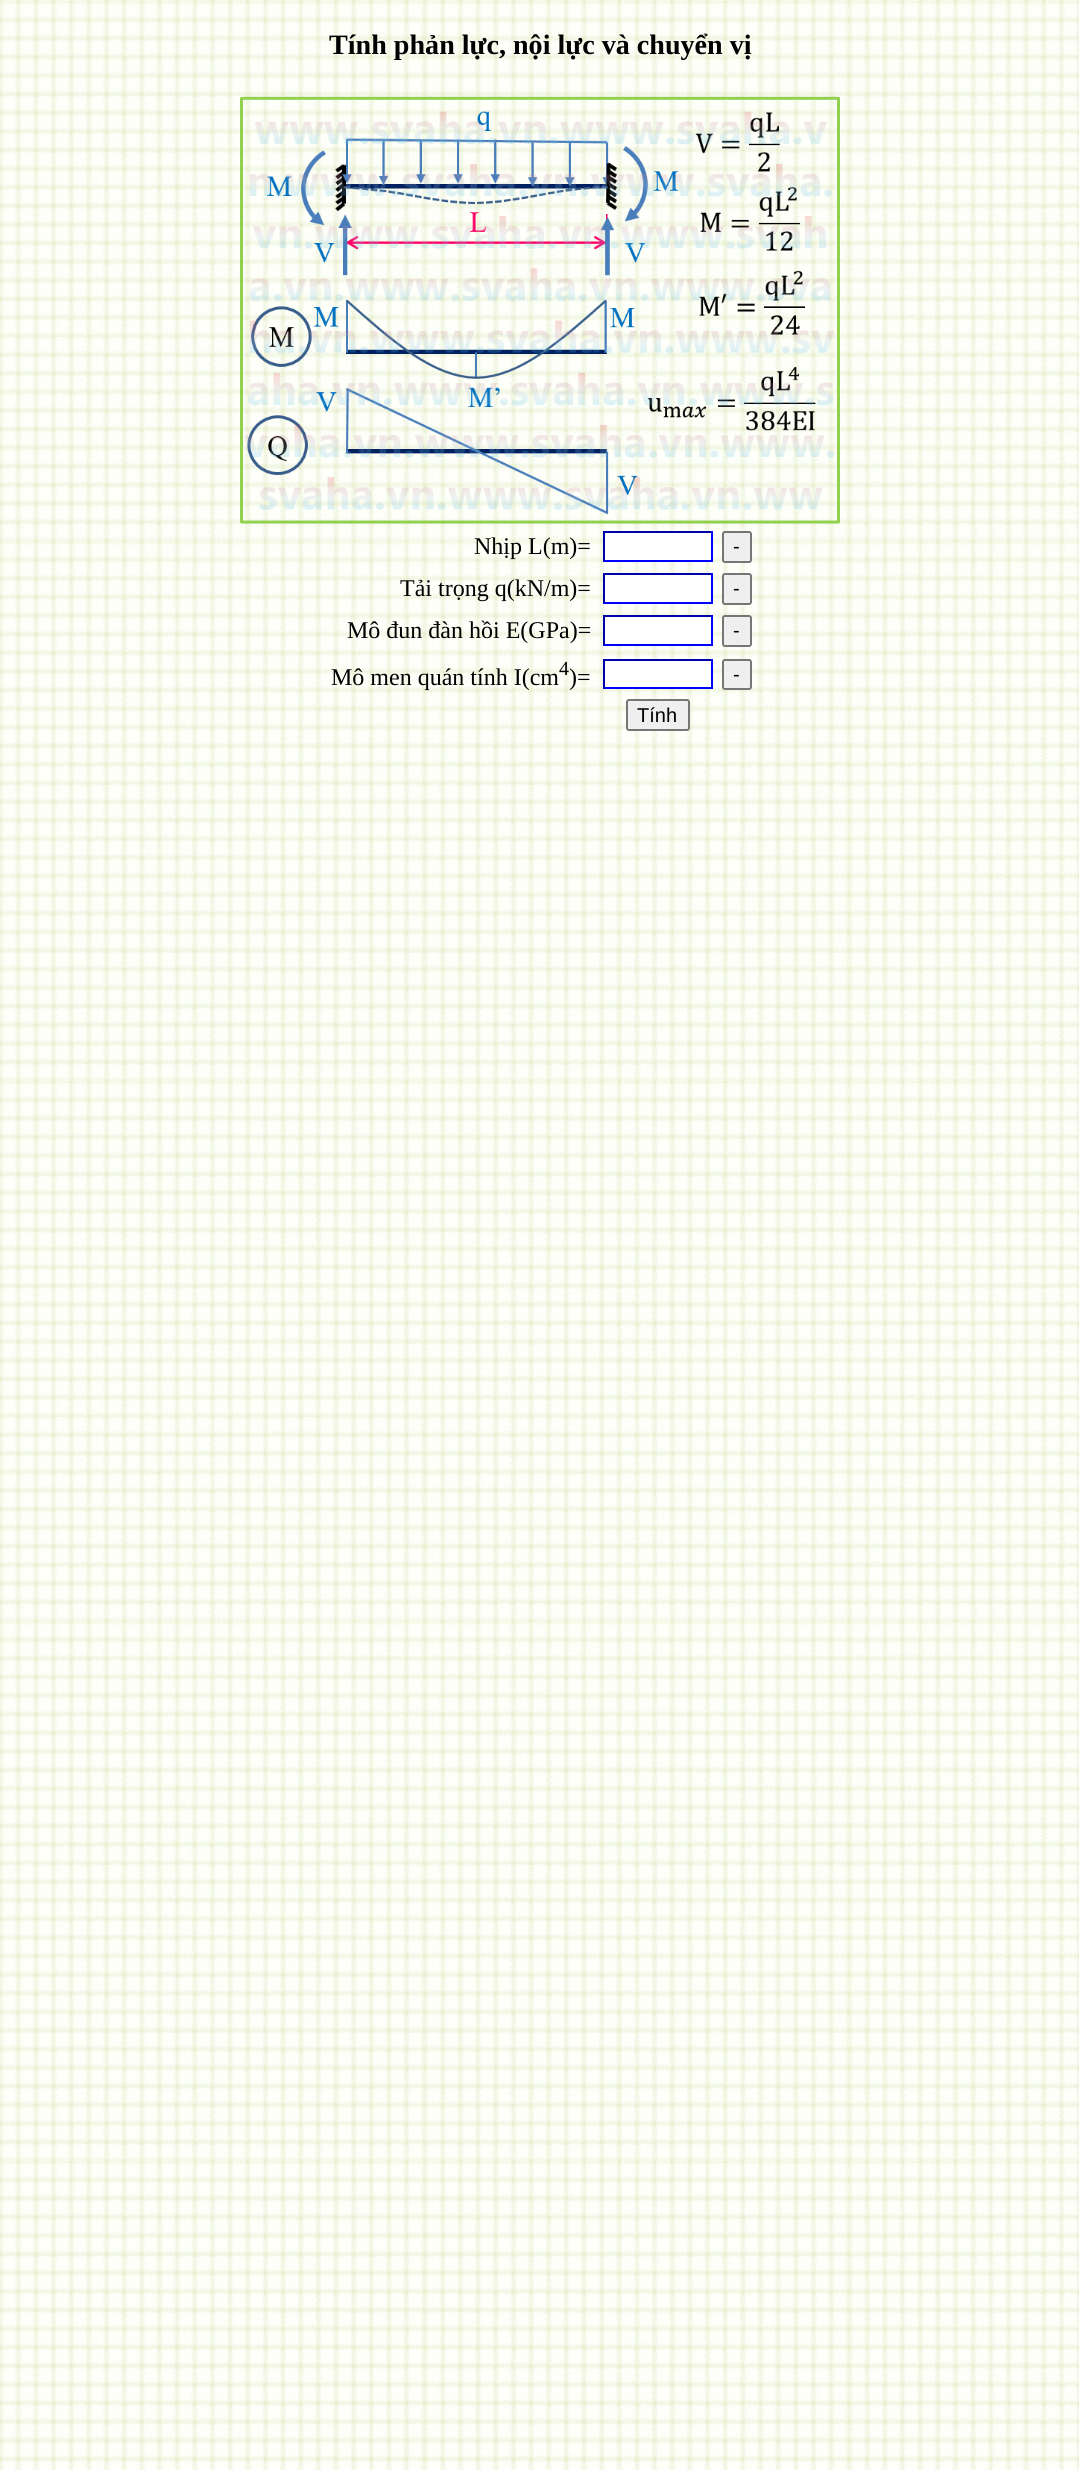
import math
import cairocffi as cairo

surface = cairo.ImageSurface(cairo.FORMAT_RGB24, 1079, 2470)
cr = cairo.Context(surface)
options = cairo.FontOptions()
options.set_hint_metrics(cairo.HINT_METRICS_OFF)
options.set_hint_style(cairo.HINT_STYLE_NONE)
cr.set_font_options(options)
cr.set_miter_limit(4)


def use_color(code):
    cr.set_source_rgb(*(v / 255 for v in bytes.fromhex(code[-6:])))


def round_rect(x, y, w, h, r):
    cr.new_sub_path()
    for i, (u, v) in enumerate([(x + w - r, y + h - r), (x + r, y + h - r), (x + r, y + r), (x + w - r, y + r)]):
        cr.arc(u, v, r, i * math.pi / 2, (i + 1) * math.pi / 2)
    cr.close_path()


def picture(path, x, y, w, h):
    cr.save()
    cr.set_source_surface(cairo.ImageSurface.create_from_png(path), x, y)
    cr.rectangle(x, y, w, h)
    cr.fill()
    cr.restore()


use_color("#ffffff")
cr.paint()
picture("img1.png", 0, 0, 1079, 2470)
cr.select_font_face("Liberation Serif", cairo.FONT_SLANT_NORMAL, cairo.FONT_WEIGHT_BOLD)
cr.set_font_size(28.1)
use_color("#000000")
cr.move_to(329, 54)
cr.show_text("Tính phản lực, nội lực và chuyển vị")
picture("img2.png", 240, 96, 600, 428)
cr.select_font_face("Liberation Serif")
cr.set_font_size(24)
cr.move_to(474, 554)
cr.show_text("Nhịp L(m)=")
use_color("#ffffff")
cr.rectangle(605, 533, 106, 27)
cr.fill()
use_color("#0000aa")
cr.rectangle(603, 531, 110, 2)
cr.fill()
use_color("#0000ff")
cr.rectangle(711, 531, 2, 30)
cr.fill()
cr.rectangle(603, 560, 110, 2)
cr.fill()
use_color("#0000aa")
cr.rectangle(603, 531, 2, 30)
cr.fill()
use_color("#efefef")
round_rect(723, 532, 28, 30, 2)
cr.fill_preserve()
use_color("#767676")
cr.stroke()
cr.select_font_face("Liberation Sans")
cr.set_font_size(20)
use_color("#000000")
cr.move_to(733, 553)
cr.show_text("-")
cr.select_font_face("Liberation Serif")
cr.set_font_size(24)
cr.move_to(400, 596)
cr.show_text("Tải trọng q(kN/m)=")
use_color("#ffffff")
cr.rectangle(605, 575, 106, 27)
cr.fill()
use_color("#0000aa")
cr.rectangle(603, 573, 110, 2)
cr.fill()
use_color("#0000ff")
cr.rectangle(711, 573, 2, 30)
cr.fill()
cr.rectangle(603, 602, 110, 2)
cr.fill()
use_color("#0000aa")
cr.rectangle(603, 573, 2, 30)
cr.fill()
use_color("#efefef")
round_rect(723, 574, 28, 30, 2)
cr.fill_preserve()
use_color("#767676")
cr.stroke()
cr.select_font_face("Liberation Sans")
cr.set_font_size(20)
use_color("#000000")
cr.move_to(733, 595)
cr.show_text("-")
cr.select_font_face("Liberation Serif")
cr.set_font_size(24)
cr.move_to(347, 638)
cr.show_text("Mô đun đàn hồi E(GPa)=")
use_color("#ffffff")
cr.rectangle(605, 617, 106, 27)
cr.fill()
use_color("#0000aa")
cr.rectangle(603, 615, 110, 2)
cr.fill()
use_color("#0000ff")
cr.rectangle(711, 615, 2, 30)
cr.fill()
cr.rectangle(603, 644, 110, 2)
cr.fill()
use_color("#0000aa")
cr.rectangle(603, 615, 2, 30)
cr.fill()
use_color("#efefef")
round_rect(723, 616, 28, 30, 2)
cr.fill_preserve()
use_color("#767676")
cr.stroke()
cr.select_font_face("Liberation Sans")
cr.set_font_size(20)
use_color("#000000")
cr.move_to(733, 637)
cr.show_text("-")
cr.select_font_face("Liberation Serif")
cr.set_font_size(24)
cr.move_to(331, 685)
cr.show_text("Mô men quán tính I(cm")
cr.set_font_size(20)
cr.move_to(559, 675)
cr.show_text("4")
cr.set_font_size(24)
cr.move_to(569, 685)
cr.show_text(")=")
use_color("#ffffff")
cr.rectangle(605, 661, 106, 26)
cr.fill()
use_color("#0000aa")
cr.rectangle(603, 659, 110, 2)
cr.fill()
use_color("#0000ff")
cr.rectangle(711, 659, 2, 30)
cr.fill()
cr.rectangle(603, 687, 110, 2)
cr.fill()
use_color("#0000aa")
cr.rectangle(603, 659, 2, 30)
cr.fill()
use_color("#efefef")
round_rect(723, 660, 28, 29, 2)
cr.fill_preserve()
use_color("#767676")
cr.stroke()
cr.select_font_face("Liberation Sans")
cr.set_font_size(20)
use_color("#000000")
cr.move_to(733, 681)
cr.show_text("-")
use_color("#efefef")
round_rect(627, 700, 62, 30, 2)
cr.fill_preserve()
use_color("#767676")
cr.stroke()
use_color("#000000")
cr.move_to(637, 722)
cr.show_text("Tính")
surface.write_to_png("result.png")
